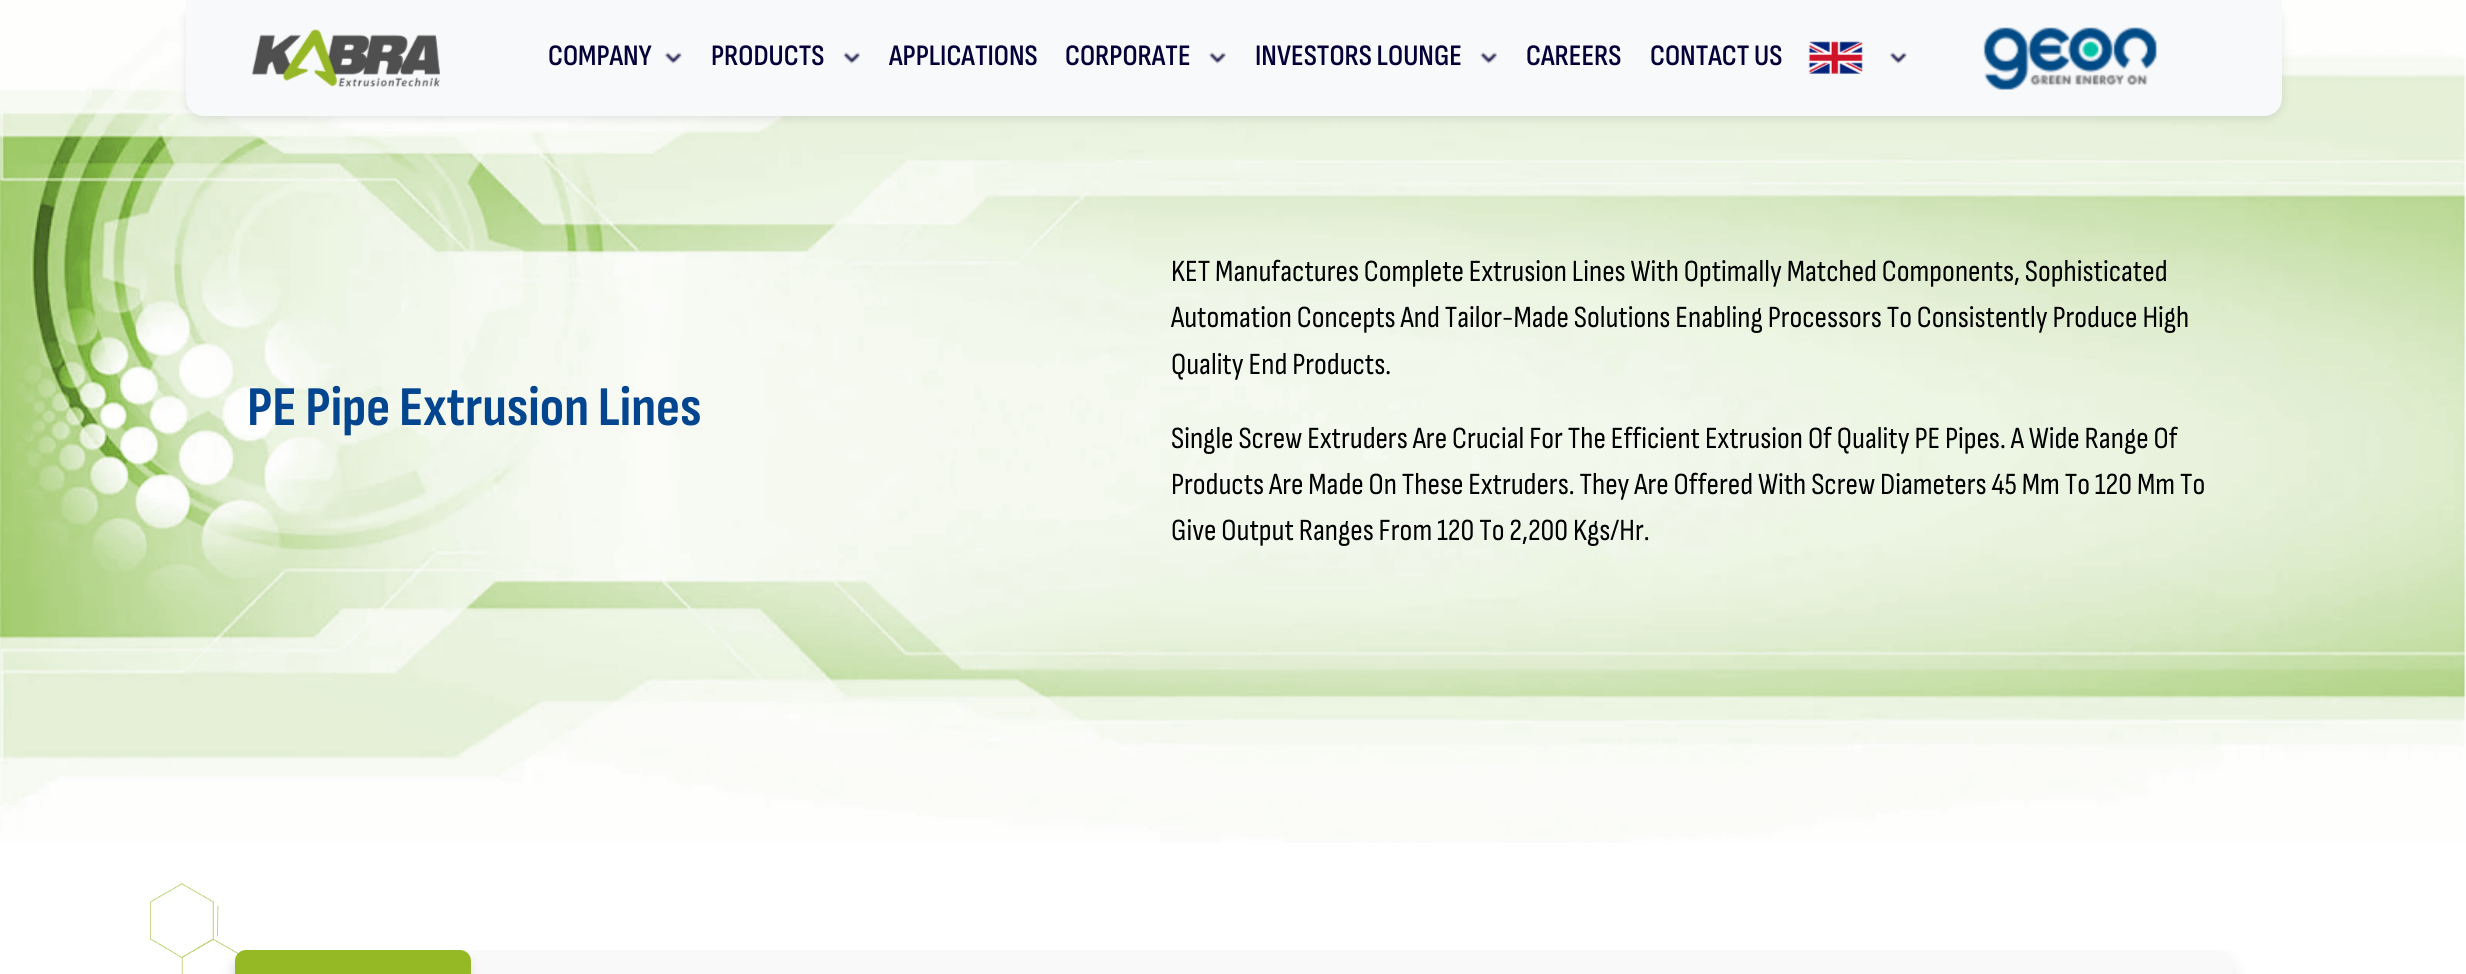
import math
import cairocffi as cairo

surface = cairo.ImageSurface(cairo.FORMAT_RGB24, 2466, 974)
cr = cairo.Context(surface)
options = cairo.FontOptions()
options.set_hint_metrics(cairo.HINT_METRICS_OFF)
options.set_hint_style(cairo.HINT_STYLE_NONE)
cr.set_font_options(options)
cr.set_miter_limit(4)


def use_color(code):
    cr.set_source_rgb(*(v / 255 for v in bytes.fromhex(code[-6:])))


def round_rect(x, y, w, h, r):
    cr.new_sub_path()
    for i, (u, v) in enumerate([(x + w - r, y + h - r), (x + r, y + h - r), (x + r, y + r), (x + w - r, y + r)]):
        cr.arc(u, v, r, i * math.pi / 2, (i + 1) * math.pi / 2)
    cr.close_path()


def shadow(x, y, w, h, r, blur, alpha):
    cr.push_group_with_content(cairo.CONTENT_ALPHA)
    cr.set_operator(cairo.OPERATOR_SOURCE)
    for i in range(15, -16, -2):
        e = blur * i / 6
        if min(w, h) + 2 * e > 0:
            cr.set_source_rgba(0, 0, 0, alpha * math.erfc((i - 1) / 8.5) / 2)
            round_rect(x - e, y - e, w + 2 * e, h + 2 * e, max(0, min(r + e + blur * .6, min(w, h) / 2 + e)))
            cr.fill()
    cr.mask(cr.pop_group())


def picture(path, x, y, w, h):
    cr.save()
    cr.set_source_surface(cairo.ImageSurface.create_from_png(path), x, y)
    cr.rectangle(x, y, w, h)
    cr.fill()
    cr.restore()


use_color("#ffffff")
cr.paint()
picture("img8.png", 0, 0, 2466, 843)
use_color("#000000")
shadow(186, 4, 2096, 115, 18, 4.5, 0.1)
use_color("#f8f9fa")
cr.new_path()
cr.move_to(186, 0)
cr.line_to(2282, 0)
cr.line_to(2282, 98)
cr.curve_to(2282, 108, 2274, 116, 2264, 116)
cr.line_to(204, 116)
cr.curve_to(194, 116, 186, 108, 186, 98)
cr.close_path()
cr.fill()
picture("img1.png", 251, 29, 189, 58)
cr.select_font_face("Sofia Sans Condensed SemiBold")
cr.set_font_size(29.75)
use_color("#050038")
cr.move_to(548, 65)
cr.show_text("COMPANY")
picture("img2.png", 664, 52, 18, 12)
cr.move_to(711, 65)
cr.show_text("PRODUCTS")
picture("img3.png", 843, 52, 17, 12)
cr.move_to(889, 65)
cr.show_text("APPLICATIONS")
cr.move_to(1065, 65)
cr.show_text("CORPORATE")
picture("img4.png", 1208, 52, 18, 12)
cr.move_to(1255, 65)
cr.show_text("INVESTORS LOUNGE")
picture("img3.png", 1480, 52, 17, 12)
cr.move_to(1526, 65)
cr.show_text("CAREERS")
cr.move_to(1650, 65)
cr.show_text("CONTACT US")
picture("img5.png", 1808, 41, 55, 33)
picture("img6.png", 1889, 52, 18, 12)
picture("img7.png", 1983, 27, 174, 63)
cr.select_font_face("Sofia Sans Condensed", cairo.FONT_SLANT_NORMAL, cairo.FONT_WEIGHT_BOLD)
cr.set_font_size(56)
use_color("#03458f")
cr.move_to(247, 425)
cr.show_text("PE Pipe Extrusion Lines")
cr.select_font_face("Sofia Sans Condensed")
cr.set_font_size(30.8)
use_color("#000000")
cr.move_to(1171, 281)
cr.show_text("KET Manufactures Complete Extrusion Lines With Optimally Matched Components, Sophisticated")
cr.move_to(1171, 327)
cr.show_text("Automation Concepts And Tailor-Made Solutions Enabling Processors To Consistently Produce High")
cr.move_to(1171, 374)
cr.show_text("Quality End Products.")
cr.move_to(1171, 448)
cr.show_text("Single Screw Extruders Are Crucial For The Efficient Extrusion Of Quality PE Pipes. A Wide Range Of")
cr.move_to(1171, 494)
cr.show_text("Products Are Made On These Extruders. They Are Offered With Screw Diameters 45 Mm To 120 Mm To")
cr.move_to(1171, 540)
cr.show_text("Give Output Ranges From 120 To 2,200 Kgs/Hr.")
picture("img9.png", 150, 883, 89, 91)
cr.save()
cr.rectangle(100, 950, 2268, 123)
cr.clip()
use_color("#000000")
shadow(235, 957, 1998, 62, 18, 9, 0.1)
cr.restore()
use_color("#f9f9f9")
round_rect(235, 950, 1998, 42, 18)
cr.fill()
use_color("#000000")
shadow(235, 957, 236, 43, 11, 5, 0.1)
use_color("#95b924")
round_rect(235, 950, 236, 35, 11)
cr.fill()
surface.write_to_png("result.png")
